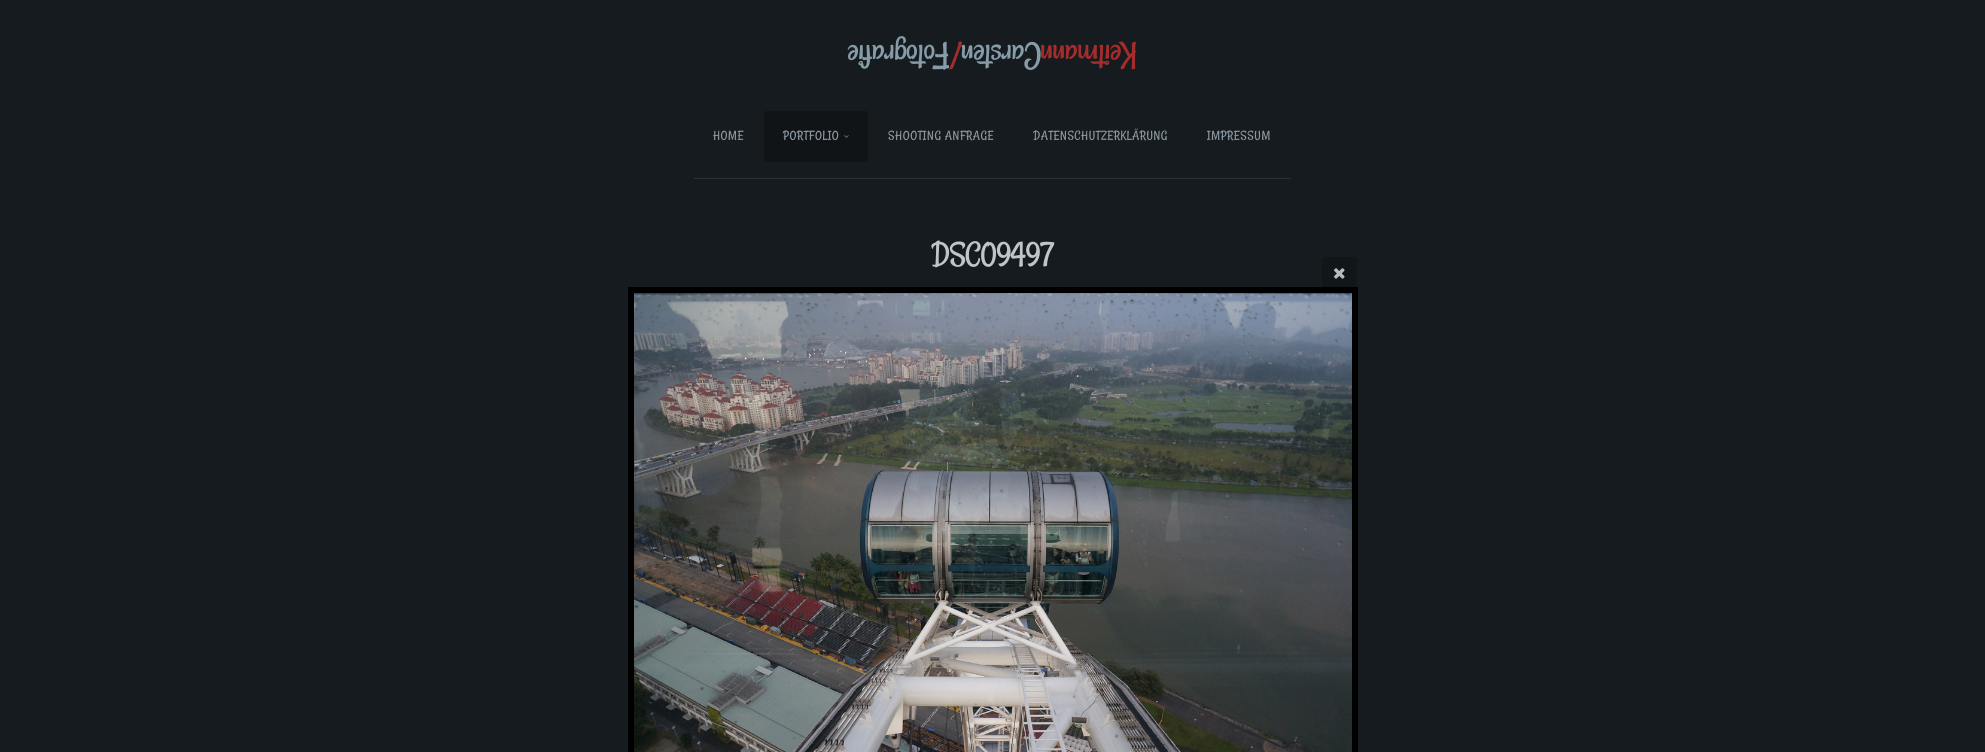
import math
import cairocffi as cairo

surface = cairo.ImageSurface(cairo.FORMAT_RGB24, 1985, 752)
cr = cairo.Context(surface)
options = cairo.FontOptions()
options.set_hint_metrics(cairo.HINT_METRICS_OFF)
options.set_hint_style(cairo.HINT_STYLE_NONE)
cr.set_font_options(options)
cr.set_miter_limit(4)


def use_color(code):
    cr.set_source_rgb(*(v / 255 for v in bytes.fromhex(code[-6:])))


def spaced_text(x, y, s, letter, word):
    cr.move_to(x, y)
    for ch in s:
        cr.show_text(ch)
        cr.rel_move_to(letter + word * (ch == ' '), 0)


def round_rect(x, y, w, h, r):
    cr.new_sub_path()
    for i, (u, v) in enumerate([(x + w - r, y + h - r), (x + r, y + h - r), (x + r, y + r), (x + w - r, y + r)]):
        cr.arc(u, v, r, i * math.pi / 2, (i + 1) * math.pi / 2)
    cr.close_path()


def picture(path, x, y, w, h):
    cr.save()
    cr.set_source_surface(cairo.ImageSurface.create_from_png(path), x, y)
    cr.rectangle(x, y, w, h)
    cr.fill()
    cr.restore()


use_color("#151b1e")
cr.paint()
cr.select_font_face("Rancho")
cr.set_font_size(37)
use_color("#869ca8")
cr.save()
cr.translate(950, 45)
cr.rotate(179.9 * math.pi / 180)
spaced_text(0, 0, "Fotografie", -1, 0)
cr.restore()
use_color("#a52c2c")
cr.save()
cr.translate(962, 45)
cr.rotate(179.9 * math.pi / 180)
spaced_text(0, 0, "/", -1, 0)
cr.restore()
use_color("#869ca8")
cr.save()
cr.translate(1041, 45)
cr.rotate(179.9 * math.pi / 180)
spaced_text(0, 0, "Carsten", -1, 0)
cr.restore()
use_color("#a52c2c")
cr.save()
cr.translate(1137, 45)
cr.rotate(179.9 * math.pi / 180)
spaced_text(0, 0, "Keitmann", -1, 0)
cr.restore()
use_color("#283339")
cr.rectangle(694, 178, 597, 1)
cr.fill()
cr.set_font_size(12.75)
use_color("#8b97a0")
spaced_text(713, 139, "HOME", 0.6, 0)
use_color("#101417")
round_rect(764, 111, 104, 51, 3)
cr.fill()
use_color("#8b97a0")
spaced_text(783, 139, "PORTFOLIO", 0.6, 0)
picture("img1.png", 844, 135, 5, 3)
spaced_text(888, 139, "SHOOTING ANFRAGE", 0.6, 0)
spaced_text(1033, 139, "DATENSCHUTZERKLÄRUNG", 0.6, 0)
spaced_text(1207, 139, "IMPRESSUM", 0.6, 0)
cr.set_font_size(34)
use_color("#bfc6cb")
spaced_text(931, 264, "DSC09497", -1, 0)
use_color("#111618")
cr.new_path()
cr.move_to(1325, 257)
cr.line_to(1354, 257)
cr.curve_to(1355.5, 257, 1357, 258.5, 1357, 260)
cr.line_to(1357, 287)
cr.line_to(1322, 287)
cr.line_to(1322, 260)
cr.curve_to(1322, 258.5, 1323.5, 257, 1325, 257)
cr.close_path()
cr.fill()
picture("img2.png", 1334, 268, 11, 11)
use_color("#000000")
cr.rectangle(628, 287, 730, 465)
cr.fill()
picture("img3.png", 634, 293, 718, 459)
surface.write_to_png("result.png")
